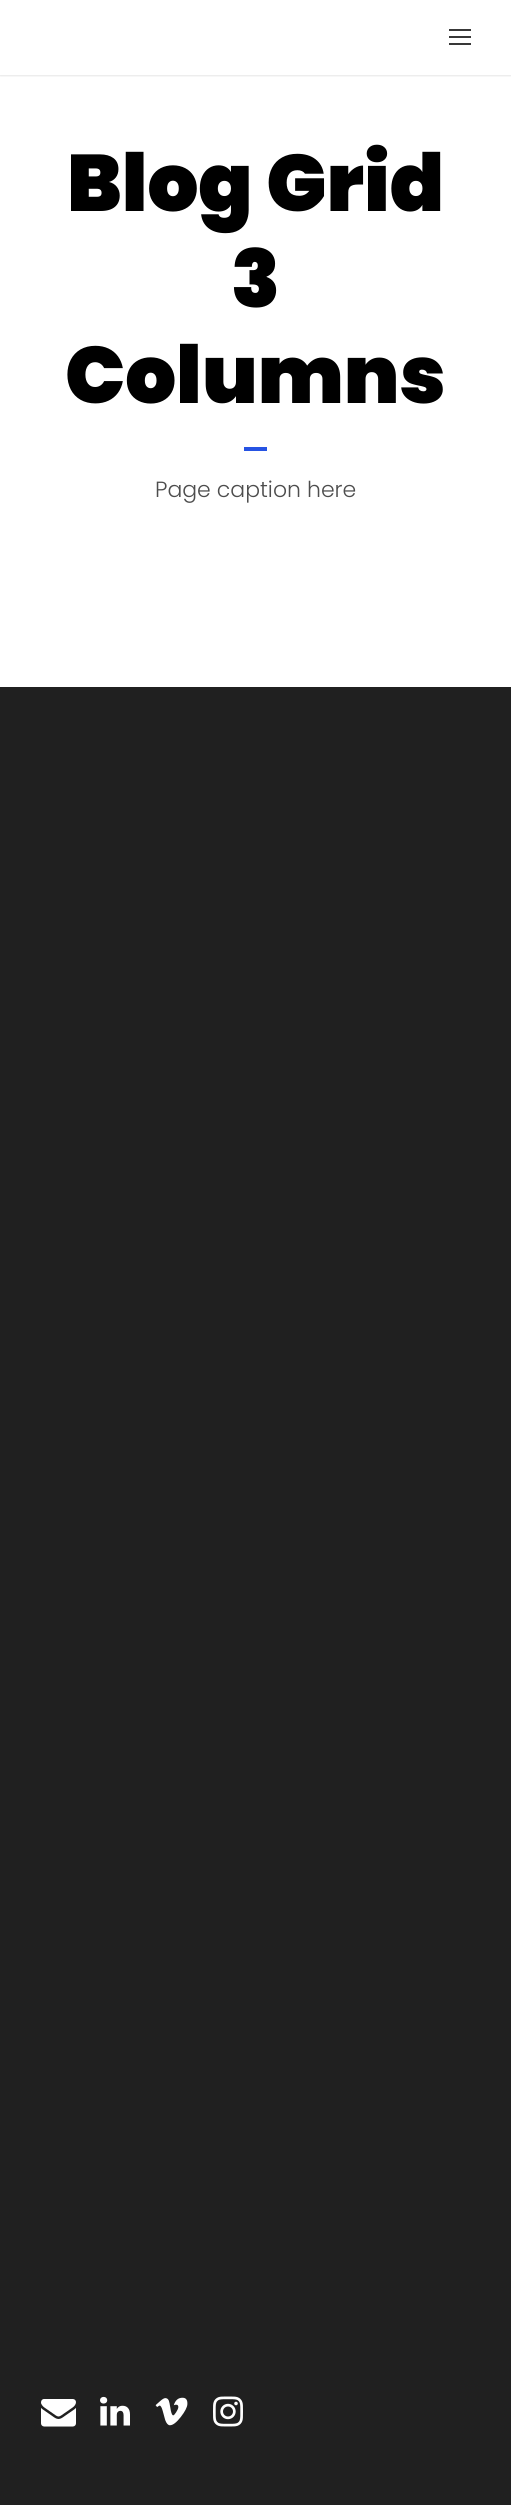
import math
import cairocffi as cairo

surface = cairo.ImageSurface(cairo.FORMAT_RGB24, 511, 2505)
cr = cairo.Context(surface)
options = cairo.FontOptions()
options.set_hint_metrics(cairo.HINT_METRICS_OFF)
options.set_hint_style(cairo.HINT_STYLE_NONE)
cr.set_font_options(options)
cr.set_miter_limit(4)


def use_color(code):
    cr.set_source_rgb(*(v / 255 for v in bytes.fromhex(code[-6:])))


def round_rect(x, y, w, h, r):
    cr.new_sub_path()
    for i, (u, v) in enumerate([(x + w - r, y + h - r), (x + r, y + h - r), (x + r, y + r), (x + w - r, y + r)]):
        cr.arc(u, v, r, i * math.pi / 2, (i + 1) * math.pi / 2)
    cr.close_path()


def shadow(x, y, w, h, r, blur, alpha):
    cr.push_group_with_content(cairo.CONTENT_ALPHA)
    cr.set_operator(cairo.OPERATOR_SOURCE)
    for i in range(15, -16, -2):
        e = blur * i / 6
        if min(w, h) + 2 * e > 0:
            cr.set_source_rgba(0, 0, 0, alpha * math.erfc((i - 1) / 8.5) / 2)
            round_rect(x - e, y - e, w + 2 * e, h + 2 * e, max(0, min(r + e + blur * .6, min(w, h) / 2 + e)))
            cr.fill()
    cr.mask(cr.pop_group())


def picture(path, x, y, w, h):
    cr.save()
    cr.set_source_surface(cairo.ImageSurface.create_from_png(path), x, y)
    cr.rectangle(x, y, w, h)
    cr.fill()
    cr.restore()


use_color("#ffffff")
cr.paint()
cr.save()
cr.rectangle(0, 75, 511, 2)
cr.clip()
use_color("#000000")
shadow(0, 1, 511, 75, 0, 1, 0.1)
cr.restore()
use_color("#383838")
cr.rectangle(449, 29, 22, 2)
cr.fill()
cr.rectangle(449, 36, 22, 2)
cr.fill()
cr.rectangle(449, 43, 22, 2)
cr.fill()
cr.select_font_face("Poppins Black")
cr.set_font_size(80)
use_color("#000000")
cr.move_to(67, 211)
cr.show_text("Blog Grid")
cr.move_to(231, 307)
cr.show_text("3")
cr.move_to(65, 403)
cr.show_text("Columns")
use_color("#2653e3")
cr.rectangle(244, 447, 23, 4)
cr.fill()
cr.select_font_face("Poppins Light")
cr.set_font_size(22)
use_color("#4d4d4d")
cr.move_to(155, 497)
cr.show_text("Page caption here")
use_color("#202020")
cr.rectangle(0, 687, 511, 1818)
cr.fill()
picture("img1.png", 41, 2399, 35, 28)
picture("img2.png", 100, 2396, 30, 30)
picture("img3.png", 155, 2397, 33, 29)
picture("img4.png", 213, 2396, 30, 31)
surface.write_to_png("result.png")
